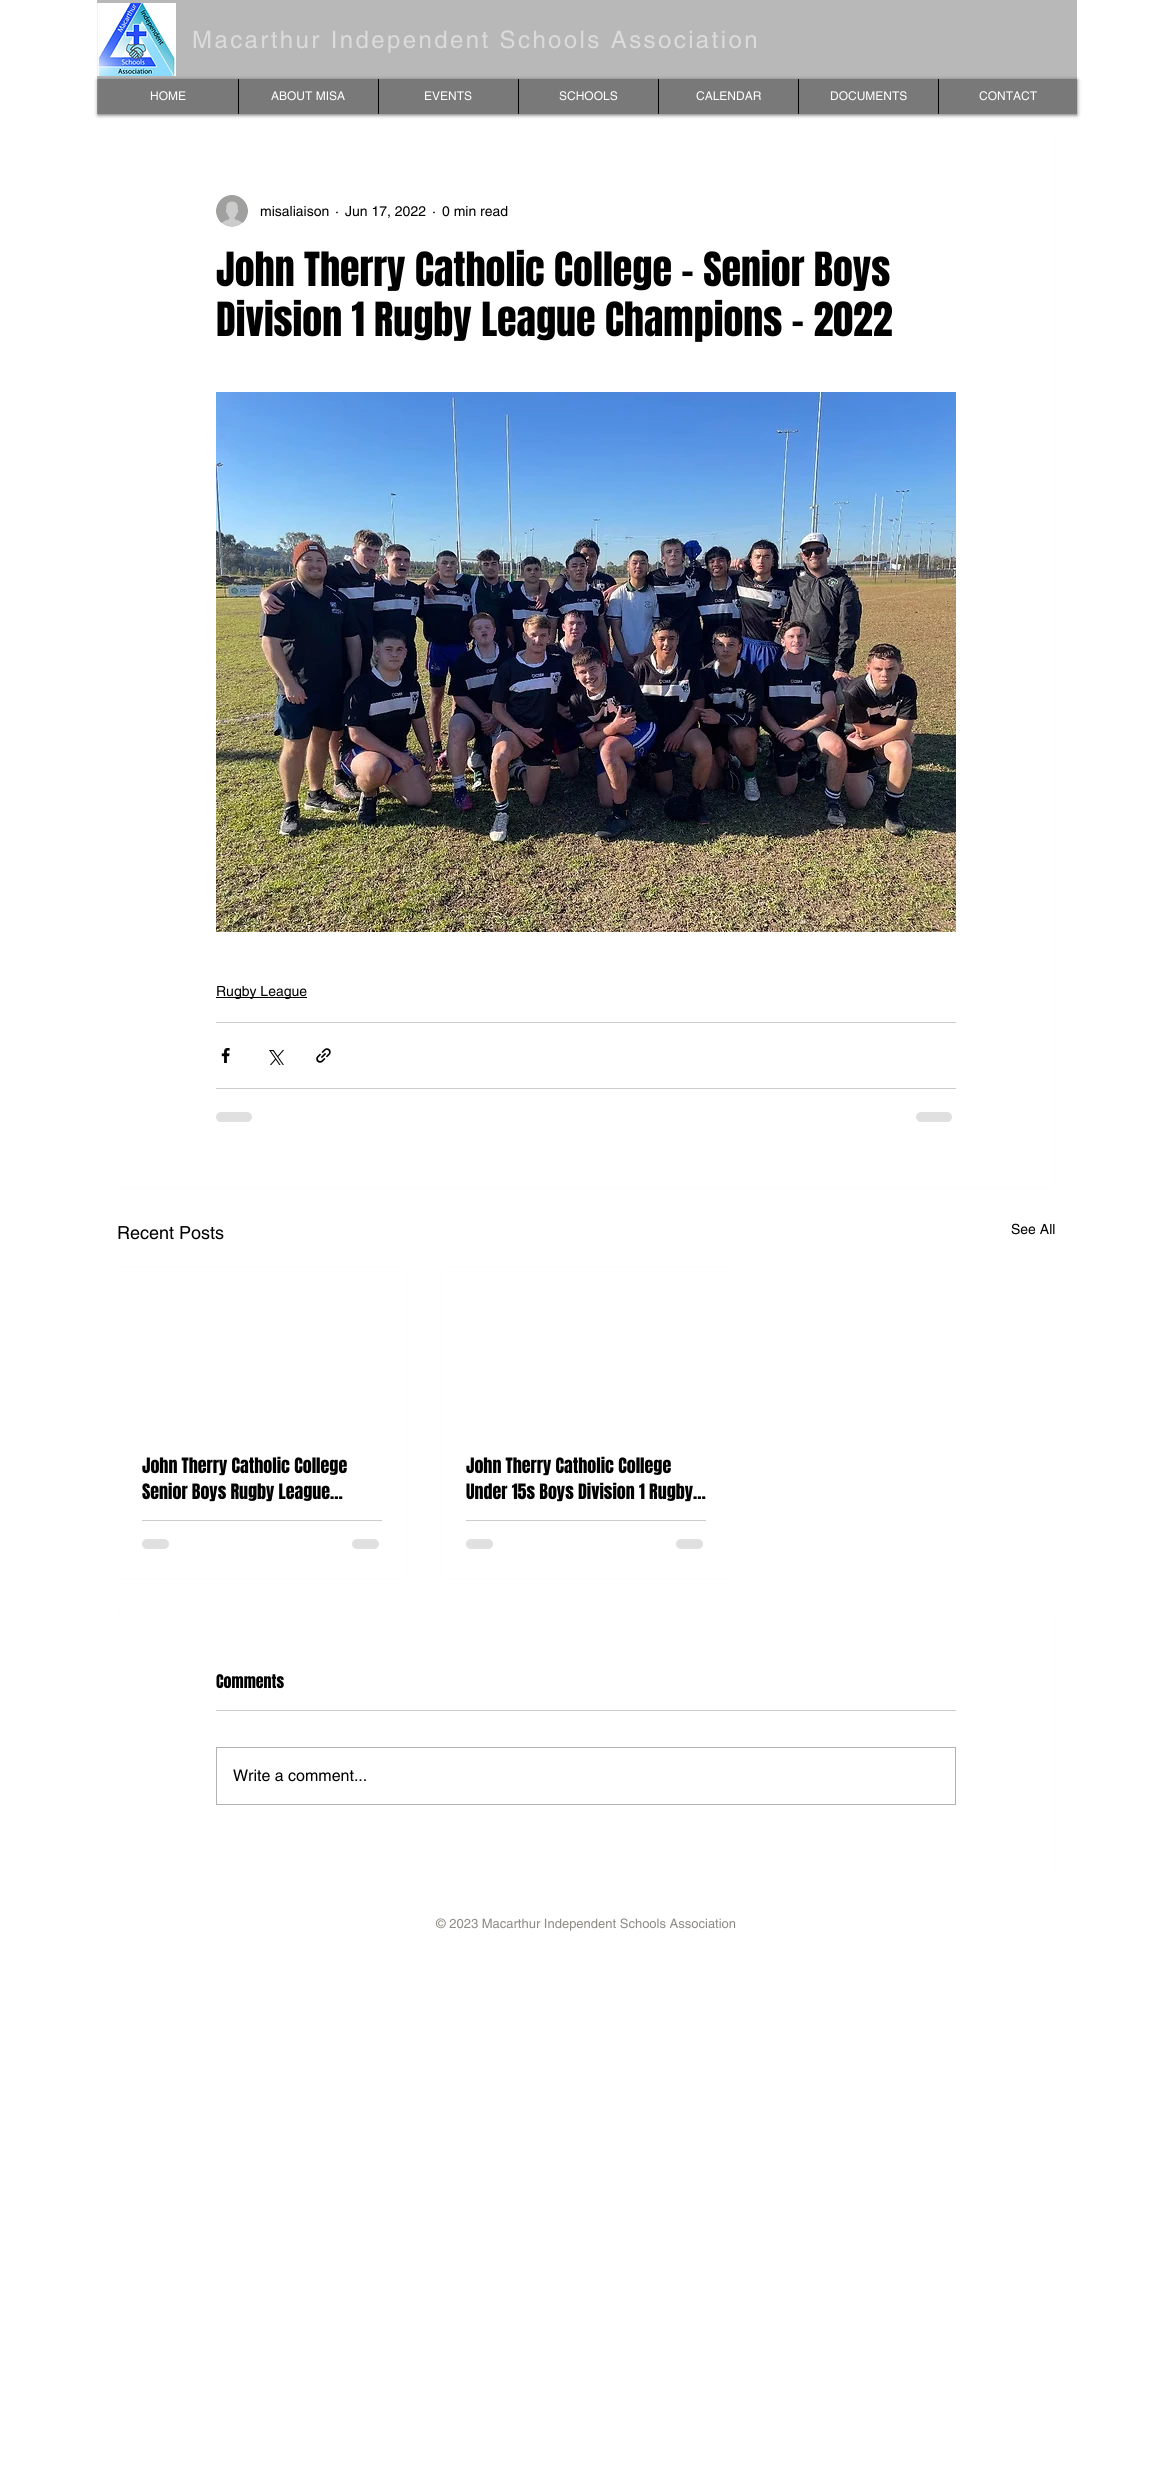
import math
import cairocffi as cairo

surface = cairo.ImageSurface(cairo.FORMAT_RGB24, 1174, 2468)
cr = cairo.Context(surface)
options = cairo.FontOptions()
options.set_hint_metrics(cairo.HINT_METRICS_OFF)
options.set_hint_style(cairo.HINT_STYLE_NONE)
cr.set_font_options(options)
cr.set_miter_limit(4)


def use_color(code):
    cr.set_source_rgb(*(v / 255 for v in bytes.fromhex(code[-6:])))


def spaced_text(x, y, s, letter, word):
    cr.move_to(x, y)
    for ch in s:
        cr.show_text(ch)
        cr.rel_move_to(letter + word * (ch == ' '), 0)


def round_rect(x, y, w, h, r):
    cr.new_sub_path()
    for i, (u, v) in enumerate([(x + w - r, y + h - r), (x + r, y + h - r), (x + r, y + r), (x + w - r, y + r)]):
        cr.arc(u, v, r, i * math.pi / 2, (i + 1) * math.pi / 2)
    cr.close_path()


def shadow(x, y, w, h, r, blur, alpha):
    cr.push_group_with_content(cairo.CONTENT_ALPHA)
    cr.set_operator(cairo.OPERATOR_SOURCE)
    for i in range(15, -16, -2):
        e = blur * i / 6
        if min(w, h) + 2 * e > 0:
            cr.set_source_rgba(0, 0, 0, alpha * math.erfc((i - 1) / 8.5) / 2)
            round_rect(x - e, y - e, w + 2 * e, h + 2 * e, max(0, min(r + e + blur * .6, min(w, h) / 2 + e)))
            cr.fill()
    cr.mask(cr.pop_group())


def picture(path, x, y, w, h):
    cr.save()
    cr.set_source_surface(cairo.ImageSurface.create_from_png(path), x, y)
    cr.rectangle(x, y, w, h)
    cr.fill()
    cr.restore()


use_color("#ffffff")
cr.paint()
use_color("#b8b8b8")
cr.rectangle(97, 0, 980, 114)
cr.fill()
picture("img1.png", 97, 3, 79, 73)
cr.select_font_face("helvetica")
cr.set_font_size(24)
use_color("#dbdbdb")
spaced_text(192, 48, "Macarthur Independent Schools Association", 2.4, 0)
use_color("#000000")
shadow(98, 80, 979, 35, 0, 2, 0.6)
use_color("#797979")
cr.rectangle(98, 79, 979, 35)
cr.fill()
cr.set_font_size(12)
use_color("#ffffff")
cr.move_to(150, 100)
cr.show_text("HOME")
use_color("#000000")
cr.rectangle(238, 79, 1, 35)
cr.fill()
use_color("#ffffff")
cr.move_to(271, 100)
cr.show_text("ABOUT MISA")
use_color("#000000")
cr.rectangle(378, 79, 1, 35)
cr.fill()
use_color("#ffffff")
cr.move_to(424, 100)
cr.show_text("EVENTS")
use_color("#000000")
cr.rectangle(518, 79, 1, 35)
cr.fill()
use_color("#ffffff")
cr.move_to(559, 100)
cr.show_text("SCHOOLS")
use_color("#000000")
cr.rectangle(658, 79, 1, 35)
cr.fill()
use_color("#ffffff")
cr.move_to(696, 100)
cr.show_text("CALENDAR")
use_color("#000000")
cr.rectangle(798, 79, 1, 35)
cr.fill()
use_color("#ffffff")
cr.move_to(830, 100)
cr.show_text("DOCUMENTS")
use_color("#000000")
cr.rectangle(938, 79, 1, 35)
cr.fill()
use_color("#ffffff")
cr.move_to(979, 100)
cr.show_text("CONTACT")
cr.rectangle(117.5, 134.5, 937, 1054)
use_color("#fefdfc")
cr.set_line_width(1)
cr.stroke()
picture("img2.png", 216, 195, 32, 32)
cr.set_font_size(14)
use_color("#000000")
cr.move_to(260, 216)
cr.show_text("misaliaison")
cr.move_to(335, 216)
cr.show_text("·")
cr.move_to(345, 216)
cr.show_text("Jun 17, 2022")
cr.move_to(432, 216)
cr.show_text("·")
cr.move_to(442, 216)
cr.show_text("0 min read")
cr.select_font_face("Anton")
cr.set_font_size(40)
cr.move_to(216, 286)
cr.show_text("John Therry Catholic College - Senior Boys")
cr.move_to(216, 336)
cr.show_text("Division 1 Rugby League Champions - 2022")
picture("img3.png", 216, 392, 740, 540)
cr.rectangle(216, 997, 91, 1)
cr.fill()
cr.select_font_face("helvetica")
cr.set_font_size(14)
cr.move_to(216, 996)
cr.show_text("Rugby League")
use_color("#cccccc")
cr.rectangle(216, 1022, 740, 1)
cr.fill()
picture("img4.png", 221, 1048, 9, 15)
picture("img5.png", 269, 1050, 15, 15)
picture("img6.png", 316, 1048, 15, 15)
cr.rectangle(216, 1088, 740, 1)
cr.fill()
use_color("#e0e0e0")
round_rect(216, 1112, 36, 10, 5)
cr.fill()
round_rect(916, 1112, 36, 10, 5)
cr.fill()
cr.set_font_size(18)
use_color("#000000")
cr.move_to(117, 1239)
cr.show_text("Recent Posts")
cr.set_font_size(14)
cr.move_to(1011, 1234)
cr.show_text("See All")
cr.rectangle(117.5, 1266.5, 289, 312)
use_color("#fefdfc")
cr.stroke()
cr.select_font_face("Anton")
cr.set_font_size(18)
use_color("#000000")
cr.move_to(142, 1473)
cr.show_text("John Therry Catholic College")
cr.move_to(142, 1499)
cr.show_text("Senior Boys Rugby League…")
use_color("#cccccc")
cr.rectangle(142, 1520, 240, 1)
cr.fill()
use_color("#e0e0e0")
round_rect(142, 1539, 27, 10, 5)
cr.fill()
round_rect(352, 1539, 27, 10, 5)
cr.fill()
cr.rectangle(441.5, 1266.5, 289, 312)
use_color("#fefdfc")
cr.stroke()
use_color("#000000")
cr.move_to(466, 1473)
cr.show_text("John Therry Catholic College")
cr.move_to(466, 1499)
cr.show_text("Under 15s Boys Division 1 Rugby…")
use_color("#cccccc")
cr.rectangle(466, 1520, 240, 1)
cr.fill()
use_color("#e0e0e0")
round_rect(466, 1539, 27, 10, 5)
cr.fill()
round_rect(676, 1539, 27, 10, 5)
cr.fill()
cr.rectangle(117.5, 1609.5, 937, 264)
use_color("#fefdfc")
cr.stroke()
cr.set_font_size(16)
use_color("#000000")
cr.move_to(216, 1688)
cr.show_text("Comments")
use_color("#cccccc")
cr.rectangle(216, 1710, 740, 1)
cr.fill()
cr.rectangle(216.5, 1747.5, 739, 57)
use_color("#b3b3b3")
cr.stroke()
cr.select_font_face("helvetica")
use_color("#000000")
cr.move_to(233, 1781)
cr.show_text("Write a comment...")
cr.set_font_size(13)
use_color("#8d8b83")
cr.move_to(436, 1928)
cr.show_text("© 2023 Macarthur Independent Schools Association")
surface.write_to_png("result.png")
